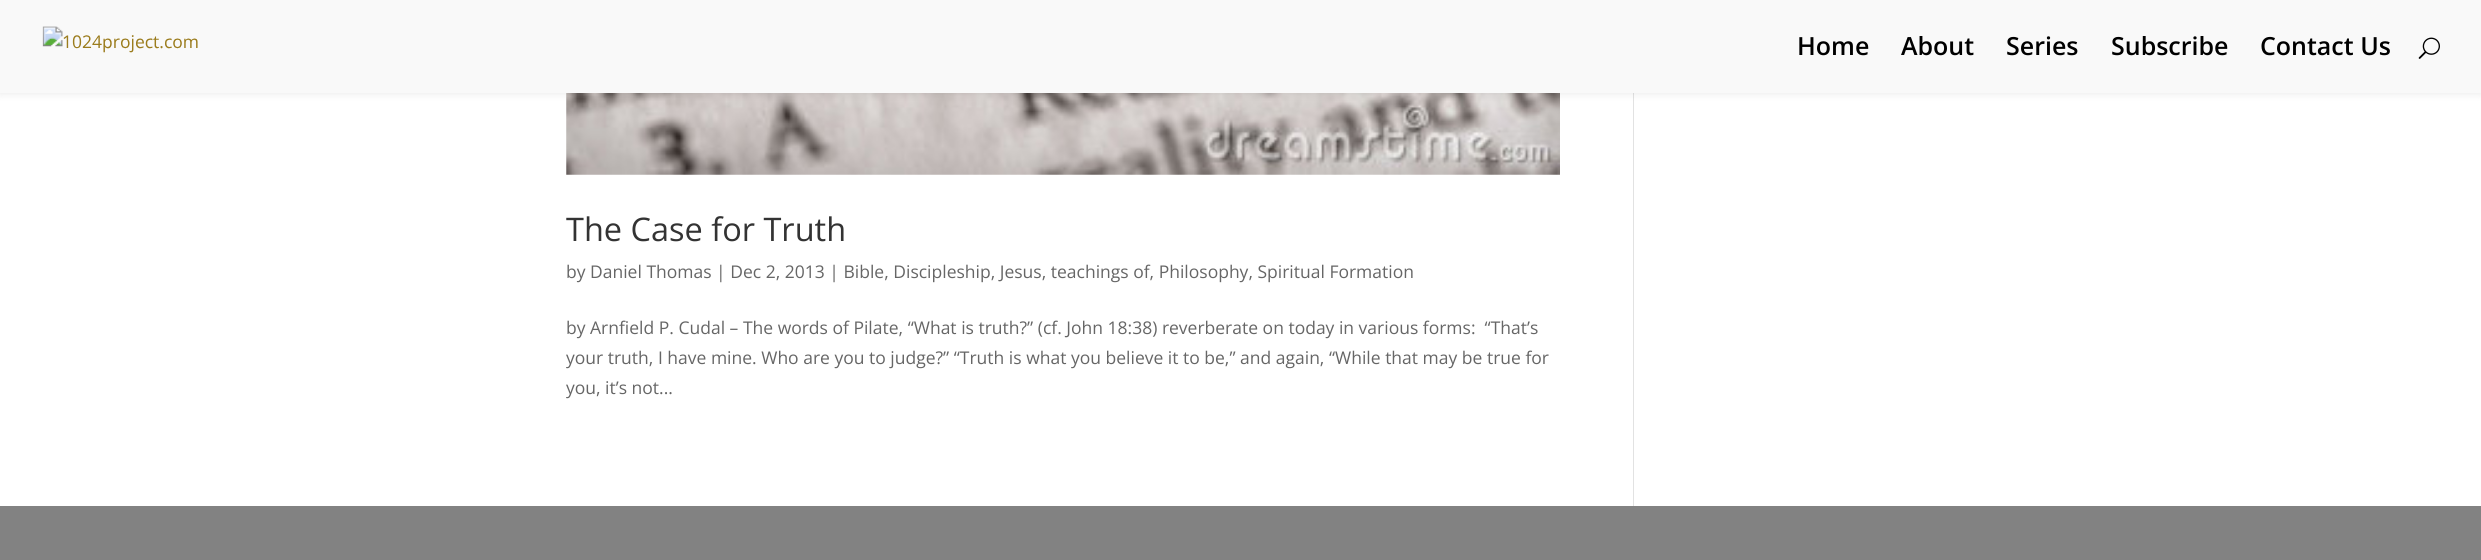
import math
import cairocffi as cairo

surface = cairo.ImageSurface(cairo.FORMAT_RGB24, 2481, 560)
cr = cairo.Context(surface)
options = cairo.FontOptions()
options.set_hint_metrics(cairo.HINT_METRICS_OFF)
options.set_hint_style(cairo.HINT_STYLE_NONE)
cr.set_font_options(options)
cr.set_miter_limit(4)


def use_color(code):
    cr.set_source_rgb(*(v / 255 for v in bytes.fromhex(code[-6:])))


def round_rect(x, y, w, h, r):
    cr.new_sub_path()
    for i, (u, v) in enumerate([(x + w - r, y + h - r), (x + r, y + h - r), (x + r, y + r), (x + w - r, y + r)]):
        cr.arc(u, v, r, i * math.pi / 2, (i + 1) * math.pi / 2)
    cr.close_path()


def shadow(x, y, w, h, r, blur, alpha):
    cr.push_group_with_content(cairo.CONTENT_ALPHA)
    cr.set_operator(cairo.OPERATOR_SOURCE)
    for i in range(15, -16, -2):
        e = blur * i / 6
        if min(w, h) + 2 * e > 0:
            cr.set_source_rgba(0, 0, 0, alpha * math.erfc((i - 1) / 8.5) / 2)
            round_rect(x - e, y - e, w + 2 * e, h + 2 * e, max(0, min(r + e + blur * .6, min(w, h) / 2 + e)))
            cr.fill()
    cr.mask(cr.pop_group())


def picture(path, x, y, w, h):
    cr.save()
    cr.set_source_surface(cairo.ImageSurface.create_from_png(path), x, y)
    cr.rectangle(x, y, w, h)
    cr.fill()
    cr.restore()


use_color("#ffffff")
cr.paint()
picture("img3.png", 566, 93, 994, 82)
use_color("#e2e2e2")
cr.rectangle(1633, 93, 1, 413)
cr.fill()
use_color("#000000")
shadow(0, 0, 2481, 93, 0, 4.5, 0.1)
use_color("#f9f9f9")
cr.rectangle(0, 0, 2481, 93)
cr.fill()
picture("img1.png", 42, 26, 156, 27)
cr.select_font_face("Open Sans SemiBold")
cr.set_font_size(25)
use_color("#000000")
cr.move_to(1797, 55)
cr.show_text("Home")
cr.move_to(1901, 55)
cr.show_text("About")
cr.move_to(2006, 55)
cr.show_text("Series")
cr.move_to(2111, 55)
cr.show_text("Subscribe")
cr.move_to(2260, 55)
cr.show_text("Contact Us")
picture("img2.png", 2418, 37, 22, 22)
cr.select_font_face("Open Sans")
cr.set_font_size(32.5)
use_color("#333333")
cr.move_to(566, 241)
cr.show_text("The Case for Truth")
cr.set_font_size(17.5)
use_color("#666666")
cr.move_to(566, 278)
cr.show_text("by Daniel Thomas | Dec 2, 2013 | Bible, Discipleship, Jesus, teachings of, Philosophy, Spiritual Formation")
cr.move_to(566, 334)
cr.show_text("by Arnfield P. Cudal – The words of Pilate, “What is truth?” (cf. John 18:38) reverberate on today in various forms:  “That’s")
cr.move_to(566, 364)
cr.show_text("your truth, I have mine. Who are you to judge?” “Truth is what you believe it to be,” and again, “While that may be true for")
cr.move_to(566, 394)
cr.show_text("you, it’s not...")
use_color("#828282")
cr.rectangle(0, 506, 2481, 54)
cr.fill()
surface.write_to_png("result.png")
